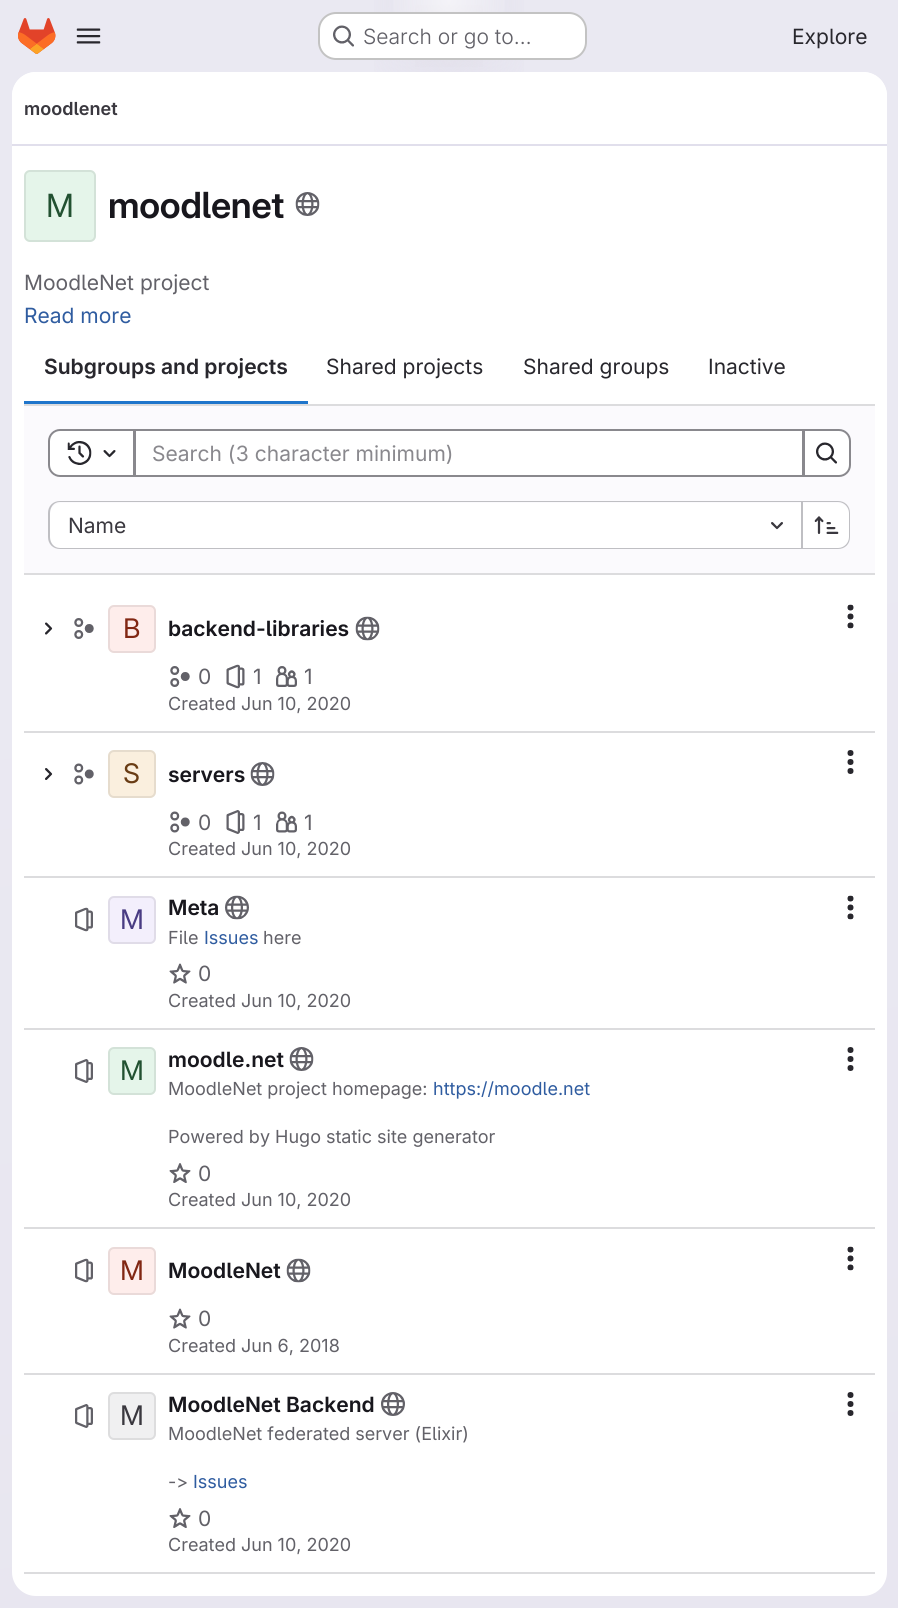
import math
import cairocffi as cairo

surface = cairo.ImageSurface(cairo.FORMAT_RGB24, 898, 1608)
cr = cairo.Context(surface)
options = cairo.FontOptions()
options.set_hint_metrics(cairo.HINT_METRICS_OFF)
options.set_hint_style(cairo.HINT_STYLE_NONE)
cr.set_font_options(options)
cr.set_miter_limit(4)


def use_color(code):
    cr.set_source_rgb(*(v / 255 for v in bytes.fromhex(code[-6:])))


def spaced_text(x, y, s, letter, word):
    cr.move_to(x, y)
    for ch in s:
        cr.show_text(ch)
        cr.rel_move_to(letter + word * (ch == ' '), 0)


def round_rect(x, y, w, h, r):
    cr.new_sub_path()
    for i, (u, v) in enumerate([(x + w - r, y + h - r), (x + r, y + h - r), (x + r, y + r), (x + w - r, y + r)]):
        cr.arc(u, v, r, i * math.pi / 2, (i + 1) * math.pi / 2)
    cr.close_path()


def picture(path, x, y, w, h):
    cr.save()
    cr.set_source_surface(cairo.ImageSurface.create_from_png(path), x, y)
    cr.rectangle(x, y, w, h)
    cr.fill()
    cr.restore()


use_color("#ffffff")
cr.paint()
gradient = cairo.LinearGradient(600, 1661, 298, -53)
gradient.add_color_stop_rgba(0, 0.91, 0.902, 0.941, 1)
gradient.add_color_stop_rgba(0.7, 0.918, 0.914, 0.949, 1)
cr.set_source(gradient)
cr.rectangle(0, 0, 898, 1608)
cr.fill()
gradient = cairo.RadialGradient(0, 0, 0, 0, 0, 1)
gradient.set_matrix(cairo.Matrix(1 / 449, 0, 0, 1 / 1608, -1 * 449 / 449, -1 * 0 / 1608))
gradient.add_color_stop_rgba(0, 0.894, 0.886, 0.929, 1)
gradient.add_color_stop_rgba(0.23, 0.894, 0.886, 0.929, 0)
cr.set_source(gradient)
cr.rectangle(374, 0, 150, 72)
cr.fill()
gradient = cairo.RadialGradient(0, 0, 0, 0, 0, 1)
gradient.set_matrix(cairo.Matrix(1 / 449, 0, 0, 1 / 1608, -1 * 449 / 449, -1 * 0 / 1608))
gradient.add_color_stop_rgba(0, 0.894, 0.886, 0.925, 1)
gradient.add_color_stop_rgba(0.17, 0.894, 0.886, 0.925, 0)
cr.set_source(gradient)
cr.rectangle(415, 5, 68, 62)
cr.fill()
gradient = cairo.RadialGradient(449, 0, 0, 449, 0, 1670)
gradient.add_color_stop_rgba(0, 1, 1, 1, 0.6)
gradient.add_color_stop_rgba(0.04, 1, 1, 1, 0)
cr.set_source(gradient)
cr.rectangle(393, 0, 112, 12)
cr.fill()
picture("img1.png", 18, 18, 38, 36)
picture("img2.png", 76, 28, 25, 16)
use_color("#ffffff")
round_rect(318, 12, 269, 48, 18)
cr.fill()
round_rect(319, 13, 267, 46, 17)
cr.set_source_rgba(0.02, 0.02, 0.024, 0.24)
cr.stroke()
picture("img3.png", 333, 25, 21, 22)
cr.select_font_face("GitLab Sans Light")
cr.set_font_size(21)
use_color("#626168")
cr.move_to(363, 44)
cr.show_text("Search or go to…")
cr.select_font_face("GitLab Sans")
use_color("#28272d")
cr.move_to(792, 44)
cr.show_text("Explore")
use_color("#ffffff")
round_rect(12, 72, 875, 1524, 24)
cr.fill()
cr.new_path()
cr.move_to(36, 72)
cr.line_to(863, 72)
cr.curve_to(876.5, 72, 887, 82.5, 887, 96)
cr.line_to(887, 146)
cr.line_to(12, 146)
cr.line_to(12, 96)
cr.curve_to(12, 82.5, 22.5, 72, 36, 72)
cr.close_path()
cr.fill()
use_color("#e1dfec")
cr.rectangle(12, 144, 875, 2)
cr.fill()
cr.select_font_face("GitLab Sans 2 SemiBold")
cr.set_font_size(18)
use_color("#3a383f")
cr.move_to(24, 115)
cr.show_text("moodlenet")
use_color("#e5f5ea")
round_rect(24, 170, 72, 72, 6)
cr.fill()
round_rect(25, 171, 70, 70, 5)
cr.set_source_rgba(0.02, 0.02, 0.024, 0.08)
cr.stroke()
cr.select_font_face("GitLab Sans 2")
cr.set_font_size(32)
use_color("#225131")
cr.move_to(46, 217)
cr.show_text("M")
cr.select_font_face("GitLab Sans SemiBold")
cr.set_font_size(36)
use_color("#18171d")
spaced_text(108, 218, "moodlenet", -0.25, 0)
picture("img4.png", 295, 192, 25, 24)
cr.select_font_face("GitLab Sans")
cr.set_font_size(21)
use_color("#626168")
cr.move_to(24, 290)
cr.show_text("MoodleNet project")
use_color("#2f5ca0")
cr.move_to(24, 323)
cr.show_text("Read more")
use_color("#dcdcde")
cr.rectangle(24, 573, 851, 2)
cr.fill()
cr.select_font_face("GitLab Sans 2 SemiBold")
use_color("#28272d")
cr.move_to(44, 374)
cr.show_text("Subgroups and projects")
use_color("#1f75cb")
cr.rectangle(24, 401, 284, 3)
cr.fill()
cr.select_font_face("GitLab Sans")
use_color("#28272d")
cr.move_to(326, 374)
cr.show_text("Shared projects")
cr.move_to(523, 374)
cr.show_text("Shared groups")
cr.move_to(708, 374)
cr.show_text("Inactive")
use_color("#fbfafd")
cr.rectangle(24, 406, 851, 167)
cr.fill()
use_color("#dcdcde")
cr.rectangle(24, 404, 851, 2)
cr.fill()
use_color("#ffffff")
cr.rectangle(135, 430, 668, 46)
cr.fill_preserve()
use_color("#89888d")
cr.stroke()
use_color("#ffffff")
cr.new_path()
cr.move_to(60, 430)
cr.line_to(134, 430)
cr.line_to(134, 476)
cr.line_to(60, 476)
cr.curve_to(54, 476, 49, 471, 49, 465)
cr.line_to(49, 441)
cr.curve_to(49, 435, 54, 430, 60, 430)
cr.close_path()
cr.fill_preserve()
use_color("#89888d")
cr.stroke()
picture("img5.png", 67, 441, 25, 24)
picture("img6.png", 103, 450, 13, 8)
cr.move_to(152, 461)
cr.show_text("Search (3 character minimum)")
use_color("#ffffff")
cr.new_path()
cr.move_to(804, 430)
cr.line_to(839, 430)
cr.curve_to(845, 430, 850, 435, 850, 441)
cr.line_to(850, 465)
cr.curve_to(850, 471, 845, 476, 839, 476)
cr.line_to(804, 476)
cr.close_path()
cr.fill_preserve()
use_color("#89888d")
cr.stroke()
picture("img7.png", 816, 442, 21, 22)
use_color("#ffffff")
cr.new_path()
cr.move_to(61, 503)
cr.line_to(801, 503)
cr.line_to(801, 548)
cr.line_to(61, 548)
cr.curve_to(55, 548, 50, 543, 50, 537)
cr.line_to(50, 514)
cr.curve_to(50, 508, 55, 503, 61, 503)
cr.close_path()
cr.fill()
use_color("#bfbfc3")
cr.set_fill_rule(cairo.FILL_RULE_EVEN_ODD)
cr.new_path()
cr.move_to(60, 501)
cr.line_to(801, 501)
cr.line_to(801, 549)
cr.line_to(60, 549)
cr.curve_to(53, 549, 48, 544, 48, 537)
cr.line_to(48, 513)
cr.curve_to(48, 506, 53, 501, 60, 501)
cr.close_path()
cr.move_to(60, 502)
cr.line_to(801, 502)
cr.line_to(801, 548)
cr.line_to(60, 548)
cr.curve_to(54, 548, 50, 543, 50, 537)
cr.line_to(50, 513)
cr.curve_to(50, 507, 54, 502, 60, 502)
cr.close_path()
cr.fill()
use_color("#3a383f")
cr.move_to(68, 533)
cr.show_text("Name")
picture("img8.png", 771, 522, 12, 8)
use_color("#ffffff")
cr.new_path()
cr.move_to(803, 503)
cr.line_to(838, 503)
cr.curve_to(844, 503, 849, 508, 849, 514)
cr.line_to(849, 537)
cr.curve_to(849, 543, 844, 548, 838, 548)
cr.line_to(803, 548)
cr.close_path()
cr.fill()
use_color("#bfbfc3")
cr.new_path()
cr.move_to(802, 501)
cr.line_to(838, 501)
cr.curve_to(845, 501, 850, 506, 850, 513)
cr.line_to(850, 537)
cr.curve_to(850, 544, 845, 549, 838, 549)
cr.line_to(802, 549)
cr.close_path()
cr.move_to(802, 502)
cr.line_to(838, 502)
cr.curve_to(844, 502, 849, 507, 849, 513)
cr.line_to(849, 537)
cr.curve_to(849, 543, 844, 548, 838, 548)
cr.line_to(802, 548)
cr.close_path()
cr.fill()
cr.rectangle(801, 501, 2, 48)
cr.fill()
picture("img9.png", 814, 516, 25, 18)
use_color("#dcdcde")
cr.rectangle(24, 731, 851, 2)
cr.fill()
picture("img10.png", 45, 622, 8, 13)
picture("img11.png", 74, 618, 20, 21)
use_color("#feedeb")
round_rect(108, 605, 48, 48, 6)
cr.fill()
round_rect(109, 606, 46, 46, 5)
cr.set_source_rgba(0.02, 0.02, 0.024, 0.08)
cr.stroke()
cr.select_font_face("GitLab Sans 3")
cr.set_font_size(27)
use_color("#812713")
cr.move_to(123, 638)
cr.show_text("B")
cr.select_font_face("GitLab Sans 2 SemiBold")
cr.set_font_size(21)
use_color("#18171d")
cr.move_to(168, 636)
cr.show_text("backend-libraries")
picture("img12.png", 355, 616, 25, 25)
picture("img13.png", 170, 666, 20, 21)
cr.select_font_face("GitLab Sans")
use_color("#626168")
cr.move_to(198, 684)
cr.show_text("0")
picture("img14.png", 226, 664, 19, 25)
cr.move_to(253, 684)
cr.show_text("1")
picture("img15.png", 276, 666, 21, 21)
cr.move_to(304, 684)
cr.show_text("1")
cr.set_font_size(18)
cr.move_to(168, 710)
cr.show_text("Created Jun 10, 2020")
picture("img16.png", 847, 604, 7, 25)
use_color("#dcdcde")
cr.rectangle(24, 876, 851, 2)
cr.fill()
picture("img17.png", 45, 768, 8, 12)
picture("img18.png", 74, 763, 20, 22)
use_color("#faefde")
round_rect(108, 750, 48, 48, 6)
cr.fill()
round_rect(109, 751, 46, 46, 5)
cr.set_source_rgba(0.02, 0.02, 0.024, 0.08)
cr.stroke()
cr.select_font_face("GitLab Sans 3")
cr.set_font_size(27)
use_color("#693c14")
cr.move_to(123, 783)
cr.show_text("S")
cr.select_font_face("GitLab Sans 2 SemiBold")
cr.set_font_size(21)
use_color("#18171d")
cr.move_to(168, 782)
cr.show_text("servers")
picture("img19.png", 250, 762, 25, 24)
picture("img20.png", 170, 811, 20, 22)
cr.select_font_face("GitLab Sans")
use_color("#626168")
cr.move_to(198, 830)
cr.show_text("0")
picture("img21.png", 226, 810, 19, 24)
cr.move_to(253, 830)
cr.show_text("1")
picture("img22.png", 276, 811, 21, 22)
cr.move_to(304, 830)
cr.show_text("1")
cr.set_font_size(18)
cr.move_to(168, 855)
cr.show_text("Created Jun 10, 2020")
picture("img23.png", 847, 750, 7, 24)
use_color("#dcdcde")
cr.rectangle(24, 1028, 851, 2)
cr.fill()
picture("img24.png", 75, 907, 18, 25)
use_color("#f3effc")
round_rect(108, 896, 48, 48, 6)
cr.fill()
round_rect(109, 897, 46, 46, 5)
cr.set_source_rgba(0.02, 0.02, 0.024, 0.08)
cr.stroke()
cr.select_font_face("GitLab Sans 3")
cr.set_font_size(27)
use_color("#493c83")
cr.move_to(120, 929)
cr.show_text("M")
cr.select_font_face("GitLab Sans 2 SemiBold")
cr.set_font_size(21)
use_color("#18171d")
cr.move_to(168, 915)
cr.show_text("Meta")
picture("img25.png", 225, 895, 24, 25)
cr.select_font_face("GitLab Sans")
cr.set_font_size(18)
use_color("#626168")
cr.move_to(168, 944)
cr.show_text("File")
use_color("#2f5ca0")
cr.move_to(204, 944)
cr.show_text("Issues")
use_color("#626168")
cr.move_to(263, 944)
cr.show_text("here")
picture("img26.png", 169, 963, 22, 21)
cr.set_font_size(21)
cr.move_to(198, 981)
cr.show_text("0")
cr.set_font_size(18)
cr.move_to(168, 1007)
cr.show_text("Created Jun 10, 2020")
picture("img16.png", 847, 895, 7, 25)
use_color("#dcdcde")
cr.rectangle(24, 1227, 851, 2)
cr.fill()
picture("img27.png", 75, 1059, 18, 24)
use_color("#e5f5ea")
round_rect(108, 1047, 48, 48, 6)
cr.fill()
round_rect(109, 1048, 46, 46, 5)
cr.set_source_rgba(0.02, 0.02, 0.024, 0.08)
cr.stroke()
cr.select_font_face("GitLab Sans 3")
cr.set_font_size(27)
use_color("#225131")
cr.move_to(120, 1080)
cr.show_text("M")
cr.select_font_face("GitLab Sans 2 SemiBold")
cr.set_font_size(21)
use_color("#18171d")
cr.move_to(168, 1067)
cr.show_text("moodle.net")
picture("img28.png", 289, 1047, 25, 24)
cr.select_font_face("GitLab Sans")
cr.set_font_size(18)
use_color("#626168")
cr.move_to(168, 1095)
cr.show_text("MoodleNet project homepage:")
use_color("#2f5ca0")
cr.move_to(433, 1095)
cr.show_text("https://moodle.net")
use_color("#626168")
cr.move_to(168, 1143)
cr.show_text("Powered by Hugo static site generator")
picture("img29.png", 169, 1163, 22, 20)
cr.set_font_size(21)
cr.move_to(198, 1181)
cr.show_text("0")
cr.set_font_size(18)
cr.move_to(168, 1206)
cr.show_text("Created Jun 10, 2020")
picture("img30.png", 847, 1047, 7, 24)
use_color("#dcdcde")
cr.rectangle(24, 1373, 851, 2)
cr.fill()
picture("img31.png", 75, 1258, 18, 25)
use_color("#feedeb")
round_rect(108, 1247, 48, 48, 6)
cr.fill()
round_rect(109, 1248, 46, 46, 5)
cr.set_source_rgba(0.02, 0.02, 0.024, 0.08)
cr.stroke()
cr.select_font_face("GitLab Sans 3")
cr.set_font_size(27)
use_color("#812713")
cr.move_to(120, 1280)
cr.show_text("M")
cr.select_font_face("GitLab Sans 2 SemiBold")
cr.set_font_size(21)
use_color("#18171d")
cr.move_to(168, 1278)
cr.show_text("MoodleNet")
picture("img32.png", 286, 1258, 25, 25)
picture("img26.png", 169, 1308, 22, 21)
cr.select_font_face("GitLab Sans")
use_color("#626168")
cr.move_to(198, 1326)
cr.show_text("0")
cr.set_font_size(18)
cr.move_to(168, 1352)
cr.show_text("Created Jun 6, 2018")
picture("img16.png", 847, 1246, 7, 25)
use_color("#dcdcde")
cr.rectangle(24, 1572, 851, 2)
cr.fill()
picture("img27.png", 75, 1404, 18, 24)
use_color("#f0f0f1")
round_rect(108, 1392, 48, 48, 6)
cr.fill()
round_rect(109, 1393, 46, 46, 5)
cr.set_source_rgba(0.02, 0.02, 0.024, 0.08)
cr.stroke()
cr.select_font_face("GitLab Sans 3")
cr.set_font_size(27)
use_color("#3a383f")
cr.move_to(120, 1425)
cr.show_text("M")
cr.select_font_face("GitLab Sans 2 SemiBold")
cr.set_font_size(21)
use_color("#18171d")
cr.move_to(168, 1412)
cr.show_text("MoodleNet Backend")
picture("img33.png", 381, 1392, 24, 24)
cr.select_font_face("GitLab Sans")
cr.set_font_size(18)
use_color("#626168")
cr.move_to(168, 1440)
cr.show_text("MoodleNet federated server (Elixir)")
cr.move_to(168, 1488)
cr.show_text("->")
use_color("#2f5ca0")
cr.move_to(193, 1488)
cr.show_text("Issues")
picture("img34.png", 169, 1508, 22, 20)
cr.set_font_size(21)
use_color("#626168")
cr.move_to(198, 1526)
cr.show_text("0")
cr.set_font_size(18)
cr.move_to(168, 1551)
cr.show_text("Created Jun 10, 2020")
picture("img30.png", 847, 1392, 7, 24)
surface.write_to_png("result.png")
